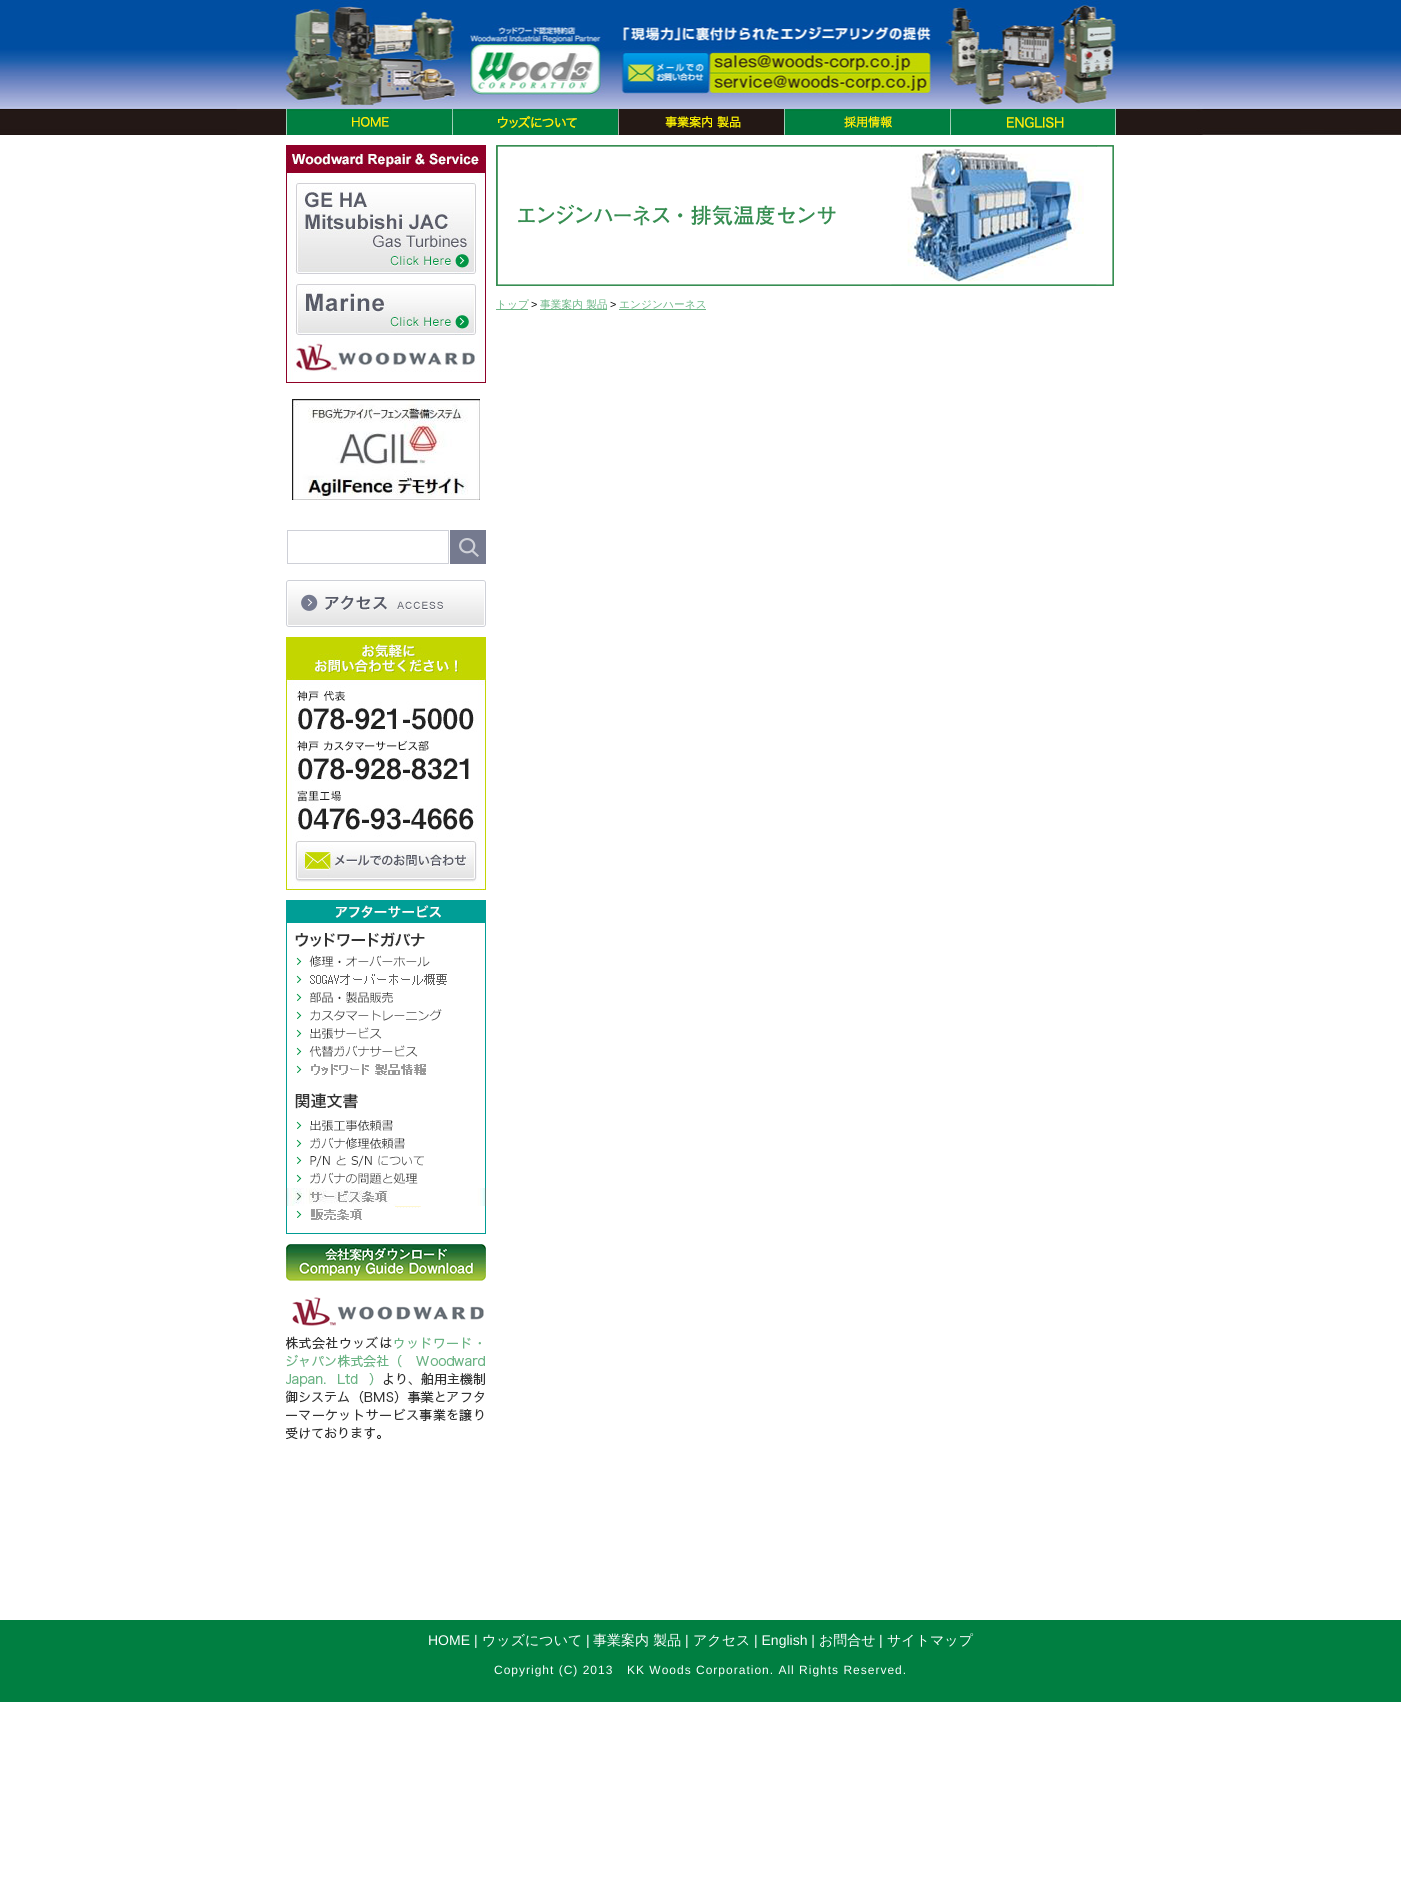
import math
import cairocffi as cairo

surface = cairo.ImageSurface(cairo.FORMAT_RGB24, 1401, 1889)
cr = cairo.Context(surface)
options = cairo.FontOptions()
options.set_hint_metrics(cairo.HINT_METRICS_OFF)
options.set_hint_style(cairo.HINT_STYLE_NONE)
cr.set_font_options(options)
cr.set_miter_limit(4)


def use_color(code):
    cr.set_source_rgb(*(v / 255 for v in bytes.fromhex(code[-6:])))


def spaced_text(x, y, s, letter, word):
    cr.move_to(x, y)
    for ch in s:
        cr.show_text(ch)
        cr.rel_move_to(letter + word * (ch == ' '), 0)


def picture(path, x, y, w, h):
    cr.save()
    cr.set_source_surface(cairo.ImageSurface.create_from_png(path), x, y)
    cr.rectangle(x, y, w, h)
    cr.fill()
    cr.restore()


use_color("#ffffff")
cr.paint()
picture("img1.png", 0, 0, 1401, 135)
picture("img2.png", 286, 109, 166, 26)
picture("img3.png", 452, 109, 166, 26)
picture("img4.png", 618, 109, 166, 26)
picture("img5.png", 784, 109, 166, 26)
picture("img6.png", 950, 109, 166, 26)
picture("img7.png", 286, 145, 200, 33)
picture("img8.png", 286, 178, 200, 101)
picture("img9.png", 286, 279, 200, 61)
picture("img10.png", 286, 340, 200, 43)
picture("img11.png", 292, 399, 188, 101)
cr.rectangle(287.5, 530.5, 161, 33)
use_color("#ced0d7")
cr.set_line_width(1)
cr.stroke()
picture("img12.png", 450, 530, 36, 34)
picture("img13.png", 286, 580, 200, 47)
picture("img14.png", 286, 637, 200, 253)
picture("img15.png", 286, 900, 200, 23)
picture("img16.png", 286, 923, 200, 30)
picture("img17.png", 286, 953, 200, 18)
picture("img18.png", 286, 971, 200, 18)
picture("img19.png", 286, 989, 200, 18)
picture("img20.png", 286, 1007, 200, 18)
picture("img21.png", 286, 1025, 200, 18)
picture("img22.png", 286, 1043, 200, 18)
picture("img23.png", 286, 1061, 200, 18)
picture("img24.png", 286, 1079, 200, 37)
picture("img25.png", 286, 1116, 200, 18)
picture("img26.png", 286, 1134, 200, 18)
picture("img27.png", 286, 1152, 200, 18)
picture("img28.png", 286, 1170, 200, 18)
picture("img29.png", 286, 1188, 200, 18)
picture("img30.png", 286, 1206, 200, 28)
picture("img31.png", 286, 1244, 200, 37)
picture("img32.png", 292, 1297, 192, 29)
picture("img33.png", 286, 1336, 199, 104)
picture("img34.png", 496, 145, 618, 141)
use_color("#6bb585")
cr.rectangle(496, 309, 32, 1)
cr.fill()
cr.select_font_face("WenQuanYi Zen Hei Medium")
cr.set_font_size(10.75)
cr.move_to(496, 308)
cr.show_text("トップ")
cr.select_font_face("Liberation Sans")
use_color("#000000")
cr.move_to(531, 308)
cr.show_text(">")
use_color("#6bb585")
cr.rectangle(540, 309, 67, 1)
cr.fill()
cr.select_font_face("WenQuanYi Zen Hei Medium")
cr.move_to(540, 308)
cr.show_text("事業案内 製品")
cr.select_font_face("Liberation Sans")
use_color("#000000")
cr.move_to(610, 308)
cr.show_text(">")
use_color("#6bb585")
cr.rectangle(619, 309, 87, 1)
cr.fill()
cr.select_font_face("WenQuanYi Zen Hei Medium")
cr.move_to(619, 308)
cr.show_text("エンジンハーネス")
use_color("#007f41")
cr.rectangle(0, 1620, 1401, 82)
cr.fill()
cr.select_font_face("Liberation Sans")
cr.set_font_size(14)
use_color("#ffffff")
cr.move_to(428, 1645)
cr.show_text("HOME |")
cr.select_font_face("WenQuanYi Zen Hei Medium")
cr.move_to(482, 1645)
cr.show_text("ウッズについて")
cr.select_font_face("Liberation Sans")
cr.move_to(586, 1645)
cr.show_text("|")
cr.select_font_face("WenQuanYi Zen Hei Medium")
cr.move_to(593, 1645)
cr.show_text("事業案内 製品")
cr.select_font_face("Liberation Sans")
cr.move_to(685, 1645)
cr.show_text("|")
cr.select_font_face("WenQuanYi Zen Hei Medium")
cr.move_to(693, 1645)
cr.show_text("アクセス")
cr.select_font_face("Liberation Sans")
cr.move_to(754, 1645)
cr.show_text("| English |")
cr.select_font_face("WenQuanYi Zen Hei Medium")
cr.move_to(819, 1645)
cr.show_text("お問合せ")
cr.select_font_face("Liberation Sans")
cr.move_to(879, 1645)
cr.show_text("|")
cr.select_font_face("WenQuanYi Zen Hei Medium")
cr.move_to(887, 1645)
cr.show_text("サイトマップ")
cr.select_font_face("Liberation Sans")
cr.set_font_size(12)
spaced_text(494, 1674, "Copyright (C) 2013", 1, 0)
spaced_text(627, 1674, "KK Woods Corporation. All Rights Reserved.", 1, 0)
surface.write_to_png("result.png")
